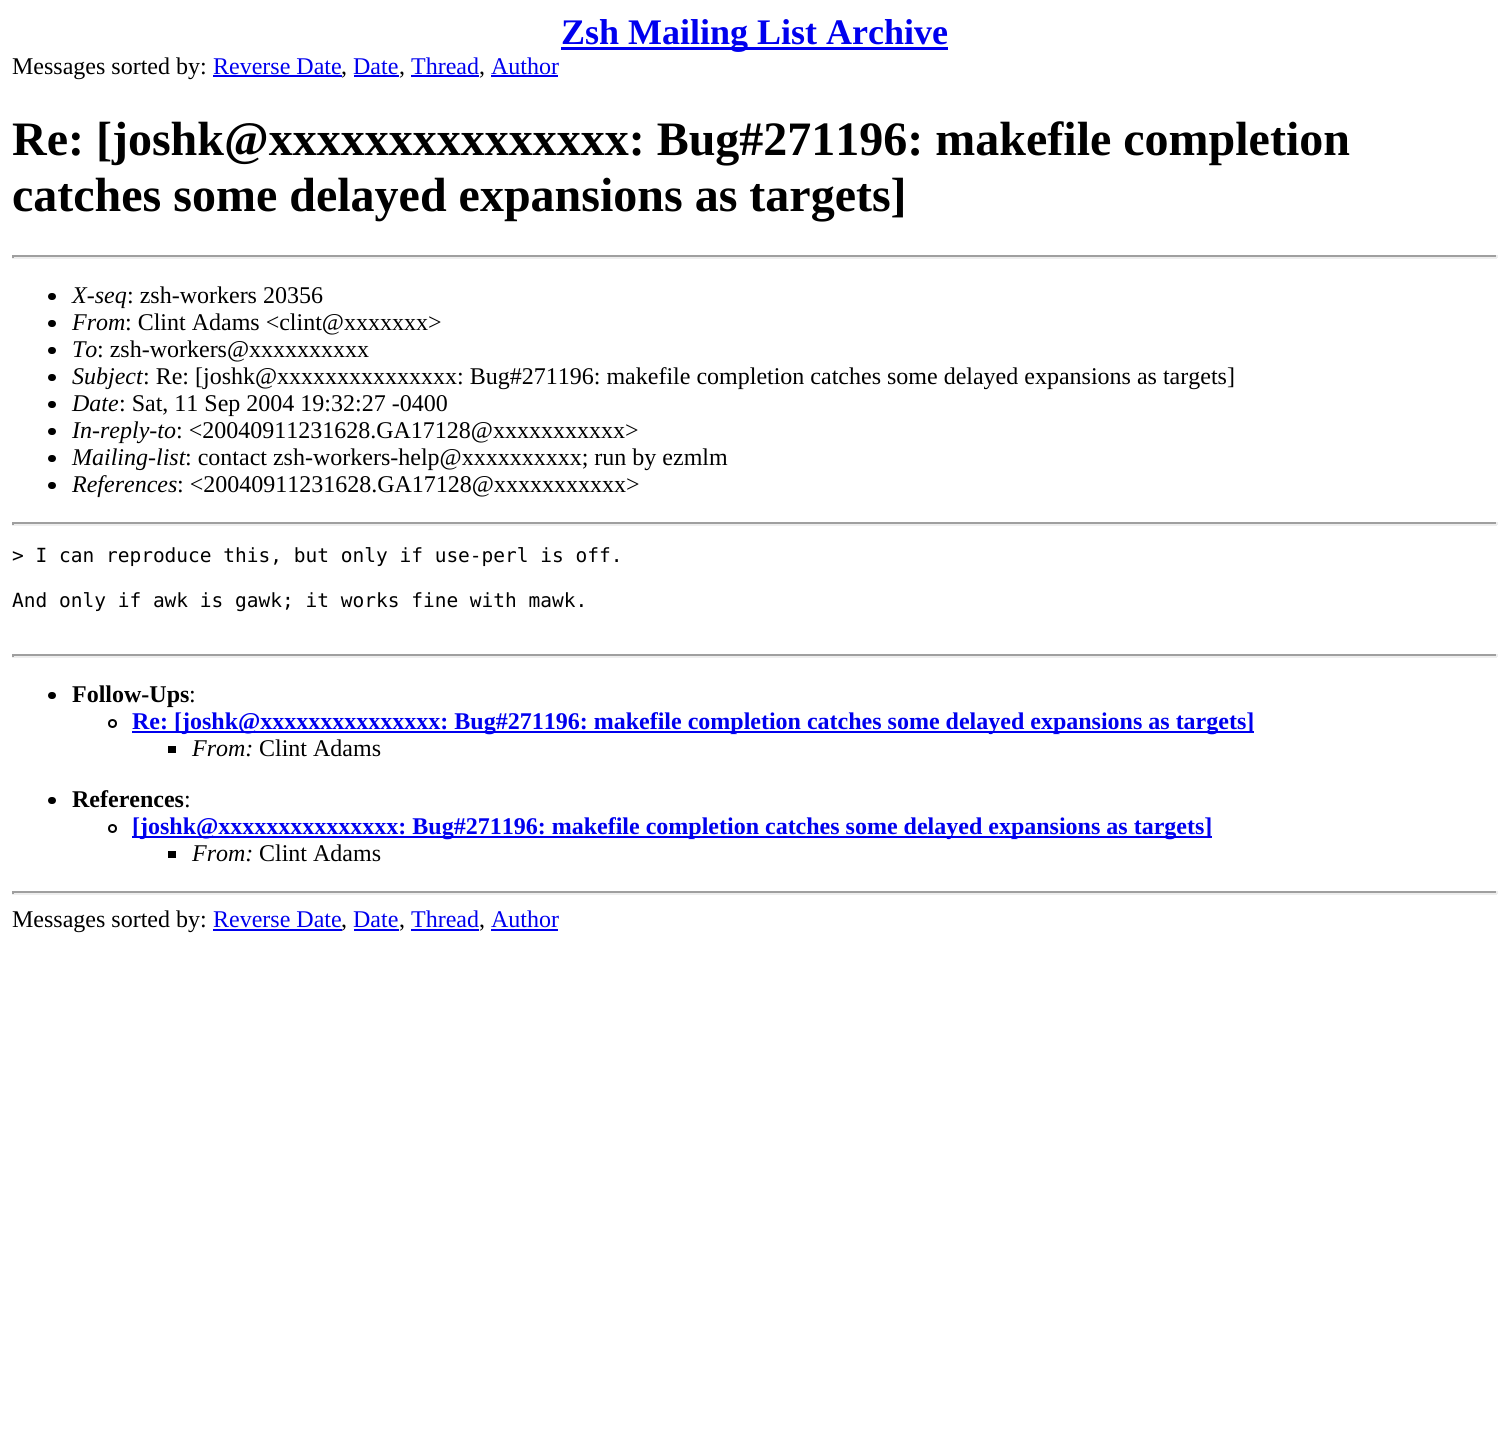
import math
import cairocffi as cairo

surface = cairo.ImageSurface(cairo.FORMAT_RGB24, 1509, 1429)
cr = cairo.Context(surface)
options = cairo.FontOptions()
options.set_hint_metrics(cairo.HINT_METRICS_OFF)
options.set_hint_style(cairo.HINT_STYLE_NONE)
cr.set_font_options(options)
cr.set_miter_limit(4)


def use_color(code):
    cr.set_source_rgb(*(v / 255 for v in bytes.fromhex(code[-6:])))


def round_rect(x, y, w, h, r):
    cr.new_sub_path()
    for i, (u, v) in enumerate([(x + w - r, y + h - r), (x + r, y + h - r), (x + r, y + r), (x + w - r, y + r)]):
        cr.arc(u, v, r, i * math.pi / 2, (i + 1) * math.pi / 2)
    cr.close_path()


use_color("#ffffff")
cr.paint()
use_color("#0000ee")
cr.rectangle(561, 47, 387, 3)
cr.fill()
cr.select_font_face("Liberation Serif", cairo.FONT_SLANT_NORMAL, cairo.FONT_WEIGHT_BOLD)
cr.set_font_size(36)
cr.move_to(561, 44)
cr.show_text("Zsh Mailing List Archive")
cr.select_font_face("Liberation Serif")
cr.set_font_size(24)
use_color("#000000")
cr.move_to(12, 74)
cr.show_text("Messages sorted by:")
use_color("#0000ee")
cr.move_to(213, 74)
cr.show_text("Reverse Date")
cr.rectangle(213, 75, 129, 2)
cr.fill()
use_color("#000000")
cr.move_to(341, 74)
cr.show_text(",")
use_color("#0000ee")
cr.move_to(353, 74)
cr.show_text("Date")
cr.rectangle(354, 75, 45, 2)
cr.fill()
use_color("#000000")
cr.move_to(399, 74)
cr.show_text(",")
use_color("#0000ee")
cr.move_to(411, 74)
cr.show_text("Thread")
cr.rectangle(411, 75, 68, 2)
cr.fill()
use_color("#000000")
cr.move_to(479, 74)
cr.show_text(",")
use_color("#0000ee")
cr.move_to(491, 74)
cr.show_text("Author")
cr.rectangle(491, 75, 67, 2)
cr.fill()
cr.select_font_face("Liberation Serif", cairo.FONT_SLANT_NORMAL, cairo.FONT_WEIGHT_BOLD)
cr.set_font_size(48)
use_color("#000000")
cr.move_to(12, 155)
cr.show_text("Re: [joshk@xxxxxxxxxxxxxxx: Bug#271196: makefile completion")
cr.move_to(12, 211)
cr.show_text("catches some delayed expansions as targets]")
use_color("#9f9f9f")
cr.rectangle(12, 255, 1485, 2)
cr.fill()
use_color("#eeeeee")
cr.rectangle(1496, 255, 2, 3)
cr.fill()
cr.rectangle(12, 257, 1485, 2)
cr.fill()
use_color("#9f9f9f")
cr.rectangle(12, 255, 2, 3)
cr.fill()
use_color("#000000")
round_rect(48, 293, 8, 7, 3.5)
cr.fill()
cr.select_font_face("Liberation Serif", cairo.FONT_SLANT_ITALIC)
cr.set_font_size(24)
cr.move_to(72, 303)
cr.show_text("X-seq")
cr.select_font_face("Liberation Serif")
cr.move_to(127, 303)
cr.show_text(": zsh-workers 20356")
round_rect(48, 320, 8, 7, 3.5)
cr.fill()
cr.select_font_face("Liberation Serif", cairo.FONT_SLANT_ITALIC)
cr.move_to(72, 330)
cr.show_text("From")
cr.select_font_face("Liberation Serif")
cr.move_to(125, 330)
cr.show_text(": Clint Adams <clint@xxxxxxx>")
round_rect(48, 347, 8, 7, 3.5)
cr.fill()
cr.select_font_face("Liberation Serif", cairo.FONT_SLANT_ITALIC)
cr.move_to(72, 357)
cr.show_text("To")
cr.select_font_face("Liberation Serif")
cr.move_to(97, 357)
cr.show_text(": zsh-workers@xxxxxxxxxx")
round_rect(48, 374, 8, 7, 3.5)
cr.fill()
cr.select_font_face("Liberation Serif", cairo.FONT_SLANT_ITALIC)
cr.move_to(72, 384)
cr.show_text("Subject")
cr.select_font_face("Liberation Serif")
cr.move_to(143, 384)
cr.show_text(": Re: [joshk@xxxxxxxxxxxxxxx: Bug#271196: makefile completion catches some delayed expansions as targets]")
round_rect(48, 401, 8, 7, 3.5)
cr.fill()
cr.select_font_face("Liberation Serif", cairo.FONT_SLANT_ITALIC)
cr.move_to(72, 411)
cr.show_text("Date")
cr.select_font_face("Liberation Serif")
cr.move_to(119, 411)
cr.show_text(": Sat, 11 Sep 2004 19:32:27 -0400")
round_rect(48, 428, 8, 7, 3.5)
cr.fill()
cr.select_font_face("Liberation Serif", cairo.FONT_SLANT_ITALIC)
cr.move_to(72, 438)
cr.show_text("In-reply-to")
cr.select_font_face("Liberation Serif")
cr.move_to(176, 438)
cr.show_text(": <20040911231628.GA17128@xxxxxxxxxxx>")
round_rect(48, 455, 8, 7, 3.5)
cr.fill()
cr.select_font_face("Liberation Serif", cairo.FONT_SLANT_ITALIC)
cr.move_to(72, 465)
cr.show_text("Mailing-list")
cr.select_font_face("Liberation Serif")
cr.move_to(185, 465)
cr.show_text(": contact zsh-workers-help@xxxxxxxxxx; run by ezmlm")
round_rect(48, 482, 8, 7, 3.5)
cr.fill()
cr.select_font_face("Liberation Serif", cairo.FONT_SLANT_ITALIC)
cr.move_to(72, 492)
cr.show_text("References")
cr.select_font_face("Liberation Serif")
cr.move_to(177, 492)
cr.show_text(": <20040911231628.GA17128@xxxxxxxxxxx>")
use_color("#9f9f9f")
cr.rectangle(12, 522, 1485, 2)
cr.fill()
use_color("#eeeeee")
cr.rectangle(1496, 522, 2, 3)
cr.fill()
cr.rectangle(12, 524, 1485, 2)
cr.fill()
use_color("#9f9f9f")
cr.rectangle(12, 522, 2, 3)
cr.fill()
cr.select_font_face("DejaVu Sans Mono")
cr.set_font_size(19.5)
use_color("#000000")
cr.move_to(12, 562)
cr.show_text("> I can reproduce this, but only if use-perl is off.")
cr.move_to(12, 607)
cr.show_text("And only if awk is gawk; it works fine with mawk.")
use_color("#9f9f9f")
cr.rectangle(12, 654, 1485, 2)
cr.fill()
use_color("#eeeeee")
cr.rectangle(1496, 654, 2, 3)
cr.fill()
cr.rectangle(12, 656, 1485, 2)
cr.fill()
use_color("#9f9f9f")
cr.rectangle(12, 654, 2, 3)
cr.fill()
use_color("#000000")
round_rect(48, 692, 8, 7, 3.5)
cr.fill()
cr.select_font_face("Liberation Serif", cairo.FONT_SLANT_NORMAL, cairo.FONT_WEIGHT_BOLD)
cr.set_font_size(24)
cr.move_to(72, 702)
cr.show_text("Follow-Ups")
cr.select_font_face("Liberation Serif")
cr.move_to(189, 702)
cr.show_text(":")
cr.new_path()
cr.arc(112.5, 723.5, 3.5, 0, 2 * math.pi)
cr.stroke()
use_color("#0000ee")
cr.rectangle(132, 731, 1122, 2)
cr.fill()
cr.select_font_face("Liberation Serif", cairo.FONT_SLANT_NORMAL, cairo.FONT_WEIGHT_BOLD)
cr.move_to(132, 729)
cr.show_text("Re: [joshk@xxxxxxxxxxxxxxx: Bug#271196: makefile completion catches some delayed expansions as targets]")
use_color("#000000")
cr.rectangle(168, 746, 8, 7)
cr.fill()
cr.select_font_face("Liberation Serif", cairo.FONT_SLANT_ITALIC)
cr.move_to(192, 756)
cr.show_text("From:")
cr.select_font_face("Liberation Serif")
cr.move_to(259, 756)
cr.show_text("Clint Adams")
round_rect(48, 797, 8, 7, 3.5)
cr.fill()
cr.select_font_face("Liberation Serif", cairo.FONT_SLANT_NORMAL, cairo.FONT_WEIGHT_BOLD)
cr.move_to(72, 807)
cr.show_text("References")
cr.select_font_face("Liberation Serif")
cr.move_to(184, 807)
cr.show_text(":")
cr.new_path()
cr.arc(112.5, 828.5, 3.5, 0, 2 * math.pi)
cr.stroke()
use_color("#0000ee")
cr.rectangle(132, 836, 1080, 2)
cr.fill()
cr.select_font_face("Liberation Serif", cairo.FONT_SLANT_NORMAL, cairo.FONT_WEIGHT_BOLD)
cr.move_to(132, 834)
cr.show_text("[joshk@xxxxxxxxxxxxxxx: Bug#271196: makefile completion catches some delayed expansions as targets]")
use_color("#000000")
cr.rectangle(168, 851, 8, 7)
cr.fill()
cr.select_font_face("Liberation Serif", cairo.FONT_SLANT_ITALIC)
cr.move_to(192, 861)
cr.show_text("From:")
cr.select_font_face("Liberation Serif")
cr.move_to(259, 861)
cr.show_text("Clint Adams")
use_color("#9f9f9f")
cr.rectangle(12, 891, 1485, 2)
cr.fill()
use_color("#eeeeee")
cr.rectangle(1496, 891, 2, 3)
cr.fill()
cr.rectangle(12, 893, 1485, 2)
cr.fill()
use_color("#9f9f9f")
cr.rectangle(12, 891, 2, 3)
cr.fill()
use_color("#000000")
cr.move_to(12, 927)
cr.show_text("Messages sorted by:")
use_color("#0000ee")
cr.move_to(213, 927)
cr.show_text("Reverse Date")
cr.rectangle(213, 929, 129, 2)
cr.fill()
use_color("#000000")
cr.move_to(341, 927)
cr.show_text(",")
use_color("#0000ee")
cr.move_to(353, 927)
cr.show_text("Date")
cr.rectangle(354, 929, 45, 2)
cr.fill()
use_color("#000000")
cr.move_to(399, 927)
cr.show_text(",")
use_color("#0000ee")
cr.move_to(411, 927)
cr.show_text("Thread")
cr.rectangle(411, 929, 68, 2)
cr.fill()
use_color("#000000")
cr.move_to(479, 927)
cr.show_text(",")
use_color("#0000ee")
cr.move_to(491, 927)
cr.show_text("Author")
cr.rectangle(491, 929, 67, 2)
cr.fill()
surface.write_to_png("result.png")
